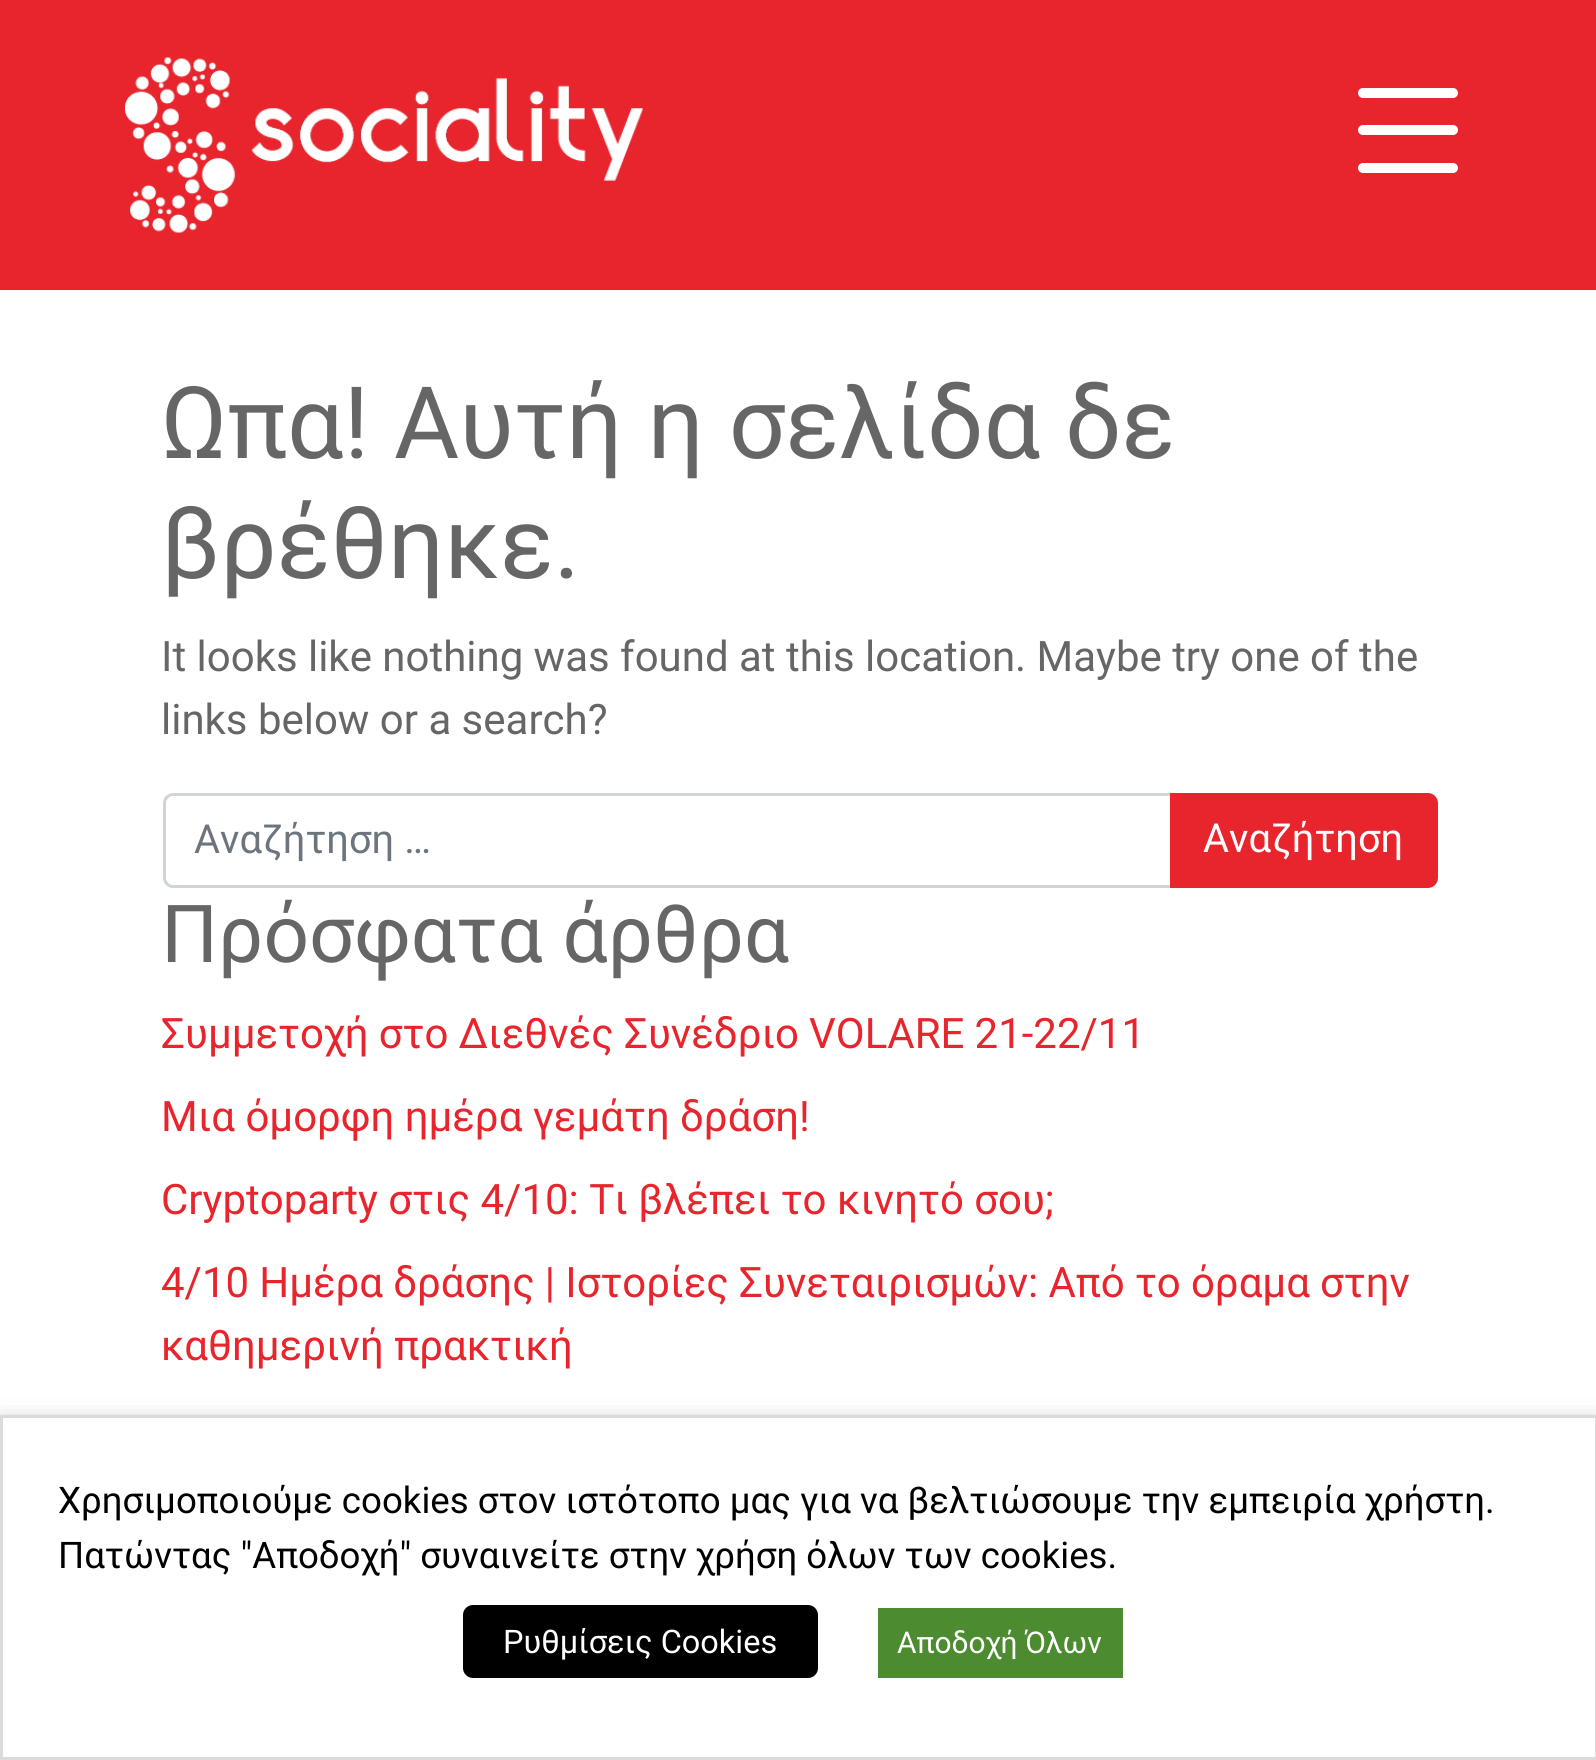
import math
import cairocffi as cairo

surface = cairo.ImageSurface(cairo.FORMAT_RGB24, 1596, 1760)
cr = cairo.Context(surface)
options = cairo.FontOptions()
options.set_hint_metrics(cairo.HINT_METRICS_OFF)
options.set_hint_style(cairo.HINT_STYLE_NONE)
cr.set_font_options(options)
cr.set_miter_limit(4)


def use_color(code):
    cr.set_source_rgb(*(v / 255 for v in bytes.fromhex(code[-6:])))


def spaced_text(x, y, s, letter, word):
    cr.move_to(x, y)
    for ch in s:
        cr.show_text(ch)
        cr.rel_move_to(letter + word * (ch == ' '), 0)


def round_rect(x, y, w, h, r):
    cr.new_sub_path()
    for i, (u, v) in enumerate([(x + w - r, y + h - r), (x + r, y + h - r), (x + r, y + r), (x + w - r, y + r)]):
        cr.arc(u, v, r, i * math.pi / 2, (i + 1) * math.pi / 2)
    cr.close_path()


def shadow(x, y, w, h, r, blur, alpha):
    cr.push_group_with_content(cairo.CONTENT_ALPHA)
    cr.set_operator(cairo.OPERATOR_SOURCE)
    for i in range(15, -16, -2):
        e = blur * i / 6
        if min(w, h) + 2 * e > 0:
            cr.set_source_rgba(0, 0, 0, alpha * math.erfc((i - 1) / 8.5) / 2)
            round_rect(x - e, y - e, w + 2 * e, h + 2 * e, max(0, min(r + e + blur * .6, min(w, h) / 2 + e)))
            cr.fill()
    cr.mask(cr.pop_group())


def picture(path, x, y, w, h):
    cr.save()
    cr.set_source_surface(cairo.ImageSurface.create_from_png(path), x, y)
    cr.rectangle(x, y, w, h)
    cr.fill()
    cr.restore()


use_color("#ffffff")
cr.paint()
use_color("#e8242c")
cr.rectangle(0, 0, 1596, 290)
cr.fill()
picture("img1.png", 125, 57, 518, 176)
use_color("#ffffff")
round_rect(1358, 88, 100, 10, 5)
cr.fill()
round_rect(1358, 125, 100, 10, 5)
cr.fill()
round_rect(1358, 163, 100, 10, 5)
cr.fill()
cr.select_font_face("Roboto")
cr.set_font_size(100)
use_color("#666666")
cr.move_to(161, 458)
cr.show_text("Ωπα! Αυτή η σελίδα δε")
cr.move_to(161, 578)
cr.show_text("βρέθηκε.")
cr.set_font_size(42)
cr.move_to(161, 671)
cr.show_text("It looks like nothing was found at this location. Maybe try one of the")
cr.move_to(161, 734)
cr.show_text("links below or a search?")
cr.new_path()
cr.move_to(173, 794.5)
cr.line_to(1171.5, 794.5)
cr.line_to(1171.5, 886.5)
cr.line_to(173, 886.5)
cr.curve_to(168.5, 886.5, 164.5, 882.5, 164.5, 878)
cr.line_to(164.5, 803)
cr.curve_to(164.5, 798.5, 168.5, 794.5, 173, 794.5)
cr.close_path()
use_color("#ced4da")
cr.set_line_width(3)
cr.stroke()
cr.set_font_size(40)
use_color("#6c757d")
cr.move_to(194, 853)
cr.show_text("Αναζήτηση …")
use_color("#e8242c")
cr.new_path()
cr.move_to(1171.5, 794.5)
cr.line_to(1428, 794.5)
cr.curve_to(1432.5, 794.5, 1436.5, 798.5, 1436.5, 803)
cr.line_to(1436.5, 878)
cr.curve_to(1436.5, 882.5, 1432.5, 886.5, 1428, 886.5)
cr.line_to(1171.5, 886.5)
cr.close_path()
cr.fill_preserve()
cr.stroke()
use_color("#ffffff")
cr.move_to(1203, 852)
cr.show_text("Αναζήτηση")
cr.set_font_size(80)
use_color("#666666")
cr.move_to(161, 962)
cr.show_text("Πρόσφατα άρθρα")
cr.set_font_size(42)
use_color("#e8242c")
spaced_text(161, 1048, "Συμμετοχή στο Διεθνές Συνέδριο VOLARE 21-22/11", 0, -0.25)
cr.move_to(161, 1131)
cr.show_text("Μια όμορφη ημέρα γεμάτη δράση!")
cr.move_to(161, 1214)
cr.show_text("Cryptoparty στις 4/10: Τι βλέπει το κινητό σου;")
spaced_text(161, 1297, "4/10 Ημέρα δράσης | Ιστορίες Συνεταιρισμών: Από το όραμα στην", 0, -0.25)
cr.move_to(161, 1360)
cr.show_text("καθημερινή πρακτική")
use_color("#000000")
shadow(0, 1428, 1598, 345, 0, 12.5, 0.5)
use_color("#ffffff")
cr.rectangle(1.5, 1416.5, 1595, 342)
cr.fill_preserve()
use_color("#dbdbdb")
cr.stroke()
cr.set_font_size(36.65)
use_color("#000000")
cr.move_to(58, 1513)
cr.show_text("Χρησιμοποιούμε cookies στον ιστότοπο μας για να βελτιώσουμε την εμπειρία χρήστη.")
cr.move_to(58, 1568)
cr.show_text("Πατώντας \"Αποδοχή\" συναινείτε στην χρήση όλων των cookies.")
round_rect(463, 1605, 355, 73, 10)
cr.fill()
cr.set_font_size(32.5)
use_color("#ffffff")
cr.move_to(503, 1653)
cr.show_text("Ρυθμίσεις Cookies")
use_color("#4d8b31")
cr.rectangle(878, 1608, 245, 70)
cr.fill()
cr.set_font_size(30)
use_color("#ffffff")
cr.move_to(897, 1653)
cr.show_text("Αποδοχή Όλων")
surface.write_to_png("result.png")
